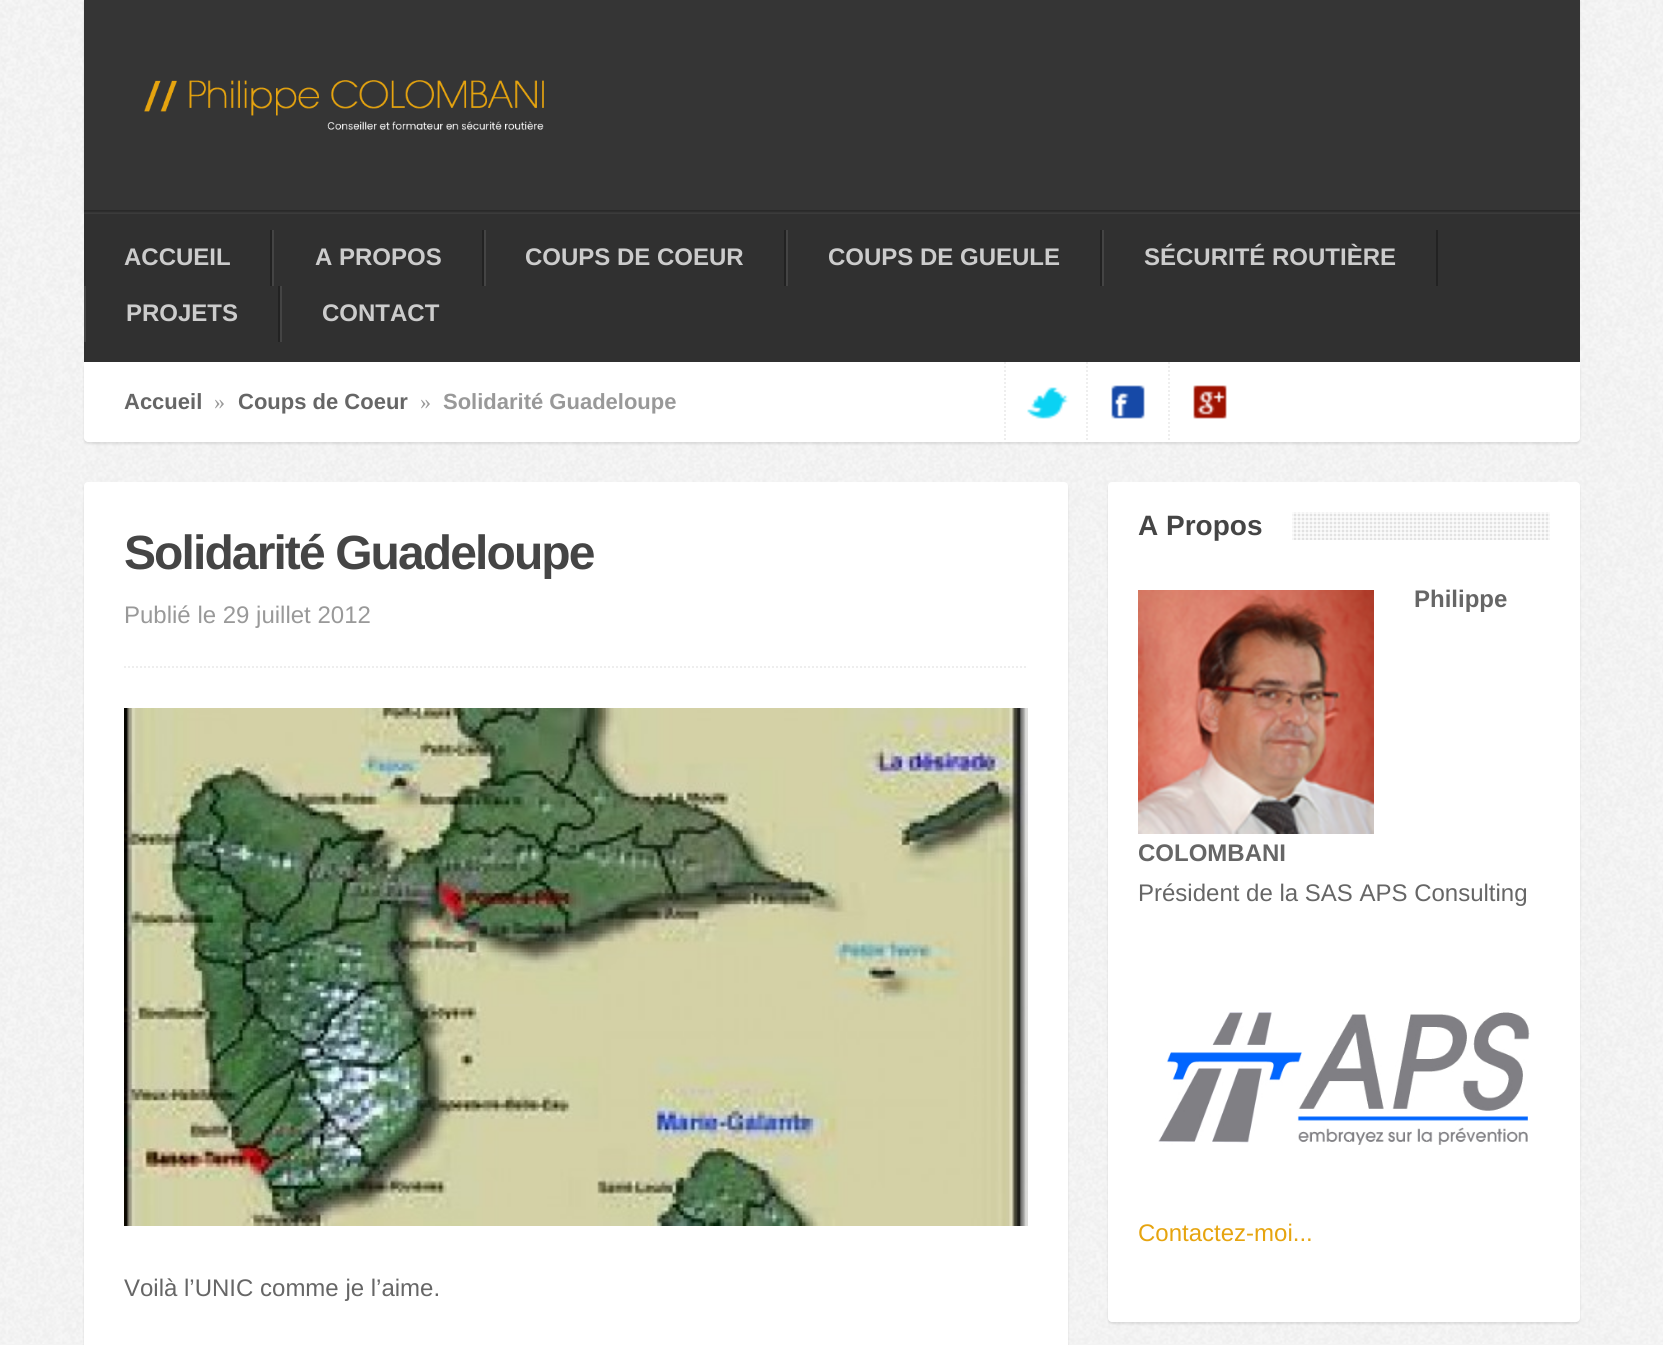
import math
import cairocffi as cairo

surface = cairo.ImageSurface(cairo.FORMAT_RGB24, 1663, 1345)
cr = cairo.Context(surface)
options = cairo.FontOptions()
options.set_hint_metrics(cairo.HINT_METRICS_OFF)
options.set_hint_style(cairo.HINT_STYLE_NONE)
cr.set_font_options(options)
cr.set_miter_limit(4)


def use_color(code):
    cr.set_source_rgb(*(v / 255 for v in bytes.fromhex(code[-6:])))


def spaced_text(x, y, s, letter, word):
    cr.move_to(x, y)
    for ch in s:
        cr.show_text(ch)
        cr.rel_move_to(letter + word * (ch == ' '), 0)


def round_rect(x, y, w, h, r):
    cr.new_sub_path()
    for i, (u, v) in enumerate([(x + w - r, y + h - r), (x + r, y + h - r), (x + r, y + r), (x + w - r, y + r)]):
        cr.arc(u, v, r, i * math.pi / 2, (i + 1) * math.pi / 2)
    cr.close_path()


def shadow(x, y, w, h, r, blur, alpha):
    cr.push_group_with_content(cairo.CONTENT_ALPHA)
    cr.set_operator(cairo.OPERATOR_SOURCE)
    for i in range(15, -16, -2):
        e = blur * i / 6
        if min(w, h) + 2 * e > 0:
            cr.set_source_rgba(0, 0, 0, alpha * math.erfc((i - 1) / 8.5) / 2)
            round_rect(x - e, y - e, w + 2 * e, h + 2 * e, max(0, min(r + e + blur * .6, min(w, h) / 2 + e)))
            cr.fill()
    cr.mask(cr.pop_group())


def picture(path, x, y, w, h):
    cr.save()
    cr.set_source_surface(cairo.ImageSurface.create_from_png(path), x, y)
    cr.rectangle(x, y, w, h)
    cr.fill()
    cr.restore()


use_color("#f3f3f3")
cr.paint()
picture("img1.png", 0, 0, 1663, 1344)
use_color("#000000")
shadow(84, 2, 1496, 210, 0, 1, 0.1)
use_color("#353535")
cr.rectangle(84, 0, 1496, 210)
cr.fill()
picture("img2.png", 144, 80, 400, 50)
use_color("#303030")
cr.rectangle(84, 210, 1496, 152)
cr.fill()
picture("img3.png", 84, 210, 1496, 4)
use_color("#222222")
cr.rectangle(270, 230, 2, 56)
cr.fill()
cr.select_font_face("Liberation Sans", cairo.FONT_SLANT_NORMAL, cairo.FONT_WEIGHT_BOLD)
cr.set_font_size(24)
use_color("#cccccc")
cr.move_to(124, 265)
cr.show_text("ACCUEIL")
use_color("#222222")
cr.rectangle(482, 230, 2, 56)
cr.fill()
use_color("#444444")
cr.rectangle(272, 230, 2, 56)
cr.fill()
use_color("#cccccc")
cr.move_to(315, 265)
cr.show_text("A PROPOS")
use_color("#222222")
cr.rectangle(784, 230, 2, 56)
cr.fill()
use_color("#444444")
cr.rectangle(484, 230, 2, 56)
cr.fill()
use_color("#cccccc")
cr.move_to(525, 265)
cr.show_text("COUPS DE COEUR")
use_color("#222222")
cr.rectangle(1100, 230, 2, 56)
cr.fill()
use_color("#444444")
cr.rectangle(786, 230, 2, 56)
cr.fill()
use_color("#cccccc")
cr.move_to(828, 265)
cr.show_text("COUPS DE GUEULE")
use_color("#222222")
cr.rectangle(1436, 230, 2, 56)
cr.fill()
use_color("#444444")
cr.rectangle(1102, 230, 2, 56)
cr.fill()
use_color("#cccccc")
cr.move_to(1144, 265)
cr.show_text("SÉCURITÉ ROUTIÈRE")
use_color("#222222")
cr.rectangle(278, 286, 2, 56)
cr.fill()
use_color("#444444")
cr.rectangle(84, 286, 2, 56)
cr.fill()
use_color("#cccccc")
cr.move_to(126, 321)
cr.show_text("PROJETS")
use_color("#444444")
cr.rectangle(280, 286, 2, 56)
cr.fill()
use_color("#cccccc")
cr.move_to(322, 321)
cr.show_text("CONTACT")
use_color("#000000")
shadow(84, 364, 1496, 80, 4, 1, 0.1)
use_color("#ffffff")
cr.new_path()
cr.move_to(84, 362)
cr.line_to(1580, 362)
cr.line_to(1580, 438)
cr.curve_to(1580, 440, 1578, 442, 1576, 442)
cr.line_to(88, 442)
cr.curve_to(86, 442, 84, 440, 84, 438)
cr.close_path()
cr.fill()
cr.set_font_size(22)
use_color("#666666")
cr.move_to(124, 409)
cr.show_text("Accueil")
cr.select_font_face("Liberation Serif")
use_color("#999999")
cr.move_to(214, 409)
cr.show_text("»")
cr.select_font_face("Liberation Sans", cairo.FONT_SLANT_NORMAL, cairo.FONT_WEIGHT_BOLD)
use_color("#666666")
cr.move_to(238, 409)
cr.show_text("Coups de Coeur")
cr.select_font_face("Liberation Serif")
use_color("#999999")
cr.move_to(420, 409)
cr.show_text("»")
cr.select_font_face("Liberation Sans", cairo.FONT_SLANT_NORMAL, cairo.FONT_WEIGHT_BOLD)
cr.move_to(443, 409)
cr.show_text("Solidarité Guadeloupe")
picture("img4.png", 1027, 387, 42, 32)
cr.new_path()
cr.move_to(1005, 362)
cr.line_to(1005, 442)
use_color("#eeeeee")
cr.set_dash([2, 2])
cr.stroke()
picture("img5.png", 1111, 385, 34, 34)
cr.new_path()
cr.move_to(1087, 362)
cr.line_to(1087, 442)
cr.stroke()
picture("img6.png", 1193, 385, 34, 34)
cr.new_path()
cr.move_to(1169, 362)
cr.line_to(1169, 442)
cr.stroke()
use_color("#000000")
shadow(84, 484, 984, 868, 4, 1, 0.1)
use_color("#ffffff")
round_rect(84, 482, 984, 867, 4)
cr.fill()
cr.set_font_size(48)
use_color("#454545")
spaced_text(124, 569, "Solidarité Guadeloupe", -1.9, 0)
cr.new_path()
cr.move_to(124, 667)
cr.line_to(1028, 667)
use_color("#eeeeee")
cr.stroke()
cr.select_font_face("Liberation Sans")
cr.set_font_size(24)
use_color("#999999")
cr.move_to(124, 623)
cr.show_text("Publié le 29 juillet 2012")
picture("img7.png", 124, 708, 904, 518)
use_color("#666666")
cr.move_to(124, 1296)
cr.show_text("Voilà l’UNIC comme je l’aime.")
use_color("#000000")
shadow(1108, 484, 472, 840, 4, 1, 0.1)
use_color("#ffffff")
round_rect(1108, 482, 472, 840, 4)
cr.fill()
picture("img8.png", 1292, 512, 258, 28)
cr.select_font_face("Liberation Sans", cairo.FONT_SLANT_NORMAL, cairo.FONT_WEIGHT_BOLD)
cr.set_font_size(28)
use_color("#454545")
cr.move_to(1138, 535)
cr.show_text("A Propos")
picture("img9.png", 1138, 590, 236, 244)
cr.set_font_size(24)
use_color("#666666")
cr.move_to(1414, 607)
cr.show_text("Philippe")
cr.move_to(1138, 861)
cr.show_text("COLOMBANI")
cr.select_font_face("Liberation Sans")
cr.move_to(1138, 901)
cr.show_text("Président de la SAS APS Consulting")
picture("img10.png", 1158, 1012, 372, 133)
use_color("#e6a40f")
cr.move_to(1138, 1241)
cr.show_text("Contactez-moi...")
surface.write_to_png("result.png")
